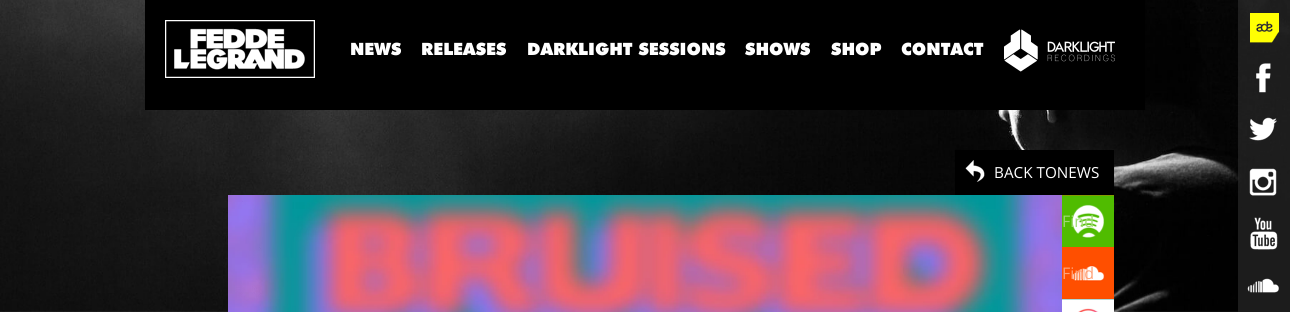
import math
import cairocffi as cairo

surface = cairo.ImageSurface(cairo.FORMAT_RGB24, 1290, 312)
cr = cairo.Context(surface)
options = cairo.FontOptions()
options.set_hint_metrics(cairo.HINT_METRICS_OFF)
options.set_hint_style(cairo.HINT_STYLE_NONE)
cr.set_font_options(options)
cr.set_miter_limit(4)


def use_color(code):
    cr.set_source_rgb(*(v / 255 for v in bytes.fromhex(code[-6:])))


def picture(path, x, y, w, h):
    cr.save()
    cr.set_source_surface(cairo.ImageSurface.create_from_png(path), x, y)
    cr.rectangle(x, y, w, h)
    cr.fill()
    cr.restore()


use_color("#ffffff")
cr.paint()
picture("img1.png", 0, 0, 1290, 312)
use_color("#000000")
cr.rectangle(145, 0, 1000, 110)
cr.fill()
picture("img2.png", 165, 20, 150, 58)
cr.select_font_face("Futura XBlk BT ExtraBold")
cr.set_font_size(17)
use_color("#ffffff")
cr.move_to(350, 55)
cr.show_text("NEWS")
cr.move_to(421, 55)
cr.show_text("RELEASES")
cr.move_to(527, 55)
cr.show_text("DARKLIGHT SESSIONS")
cr.move_to(745, 55)
cr.show_text("SHOWS")
cr.move_to(831, 55)
cr.show_text("SHOP")
cr.move_to(901, 55)
cr.show_text("CONTACT")
picture("img3.png", 1004, 29, 111, 43)
cr.set_source_rgba(0.267, 0.267, 0.267, 0.4)
cr.rectangle(1238, 0, 52, 52)
cr.fill()
picture("img4.png", 1250, 13, 29, 30)
cr.rectangle(1238, 52, 52, 52)
cr.fill()
picture("img5.png", 1256, 63, 15, 30)
cr.rectangle(1238, 104, 52, 52)
cr.fill()
picture("img6.png", 1249, 117, 28, 24)
cr.rectangle(1238, 156, 52, 52)
cr.fill()
picture("img7.png", 1249, 168, 28, 28)
use_color("#1c1c1c")
cr.rectangle(1238, 208, 52, 104)
cr.fill()
picture("img8.png", 1250, 217, 28, 33)
picture("img9.png", 1247, 278, 32, 15)
use_color("#000000")
cr.rectangle(955, 150, 159, 45)
cr.fill()
picture("img10.png", 965, 160, 20, 22)
cr.select_font_face("Open Sans")
cr.set_font_size(15.25)
use_color("#ffffff")
cr.move_to(994, 178)
cr.show_text("BACK TONEWS")
picture("img11.png", 228, 195, 834, 117)
use_color("#50bc00")
cr.rectangle(1062, 239, 52, 8)
cr.fill()
picture("img12.png", 1062, 195, 52, 44)
cr.set_font_size(16)
use_color("#9fda73")
cr.move_to(1062, 227)
cr.show_text("Find")
use_color("#ff4f00")
cr.rectangle(1062, 247, 52, 18)
cr.fill()
picture("img13.png", 1062, 265, 52, 34)
use_color("#ffa278")
cr.move_to(1062, 279)
cr.show_text("Find")
picture("img14.png", 1062, 299, 52, 13)
surface.write_to_png("result.png")
